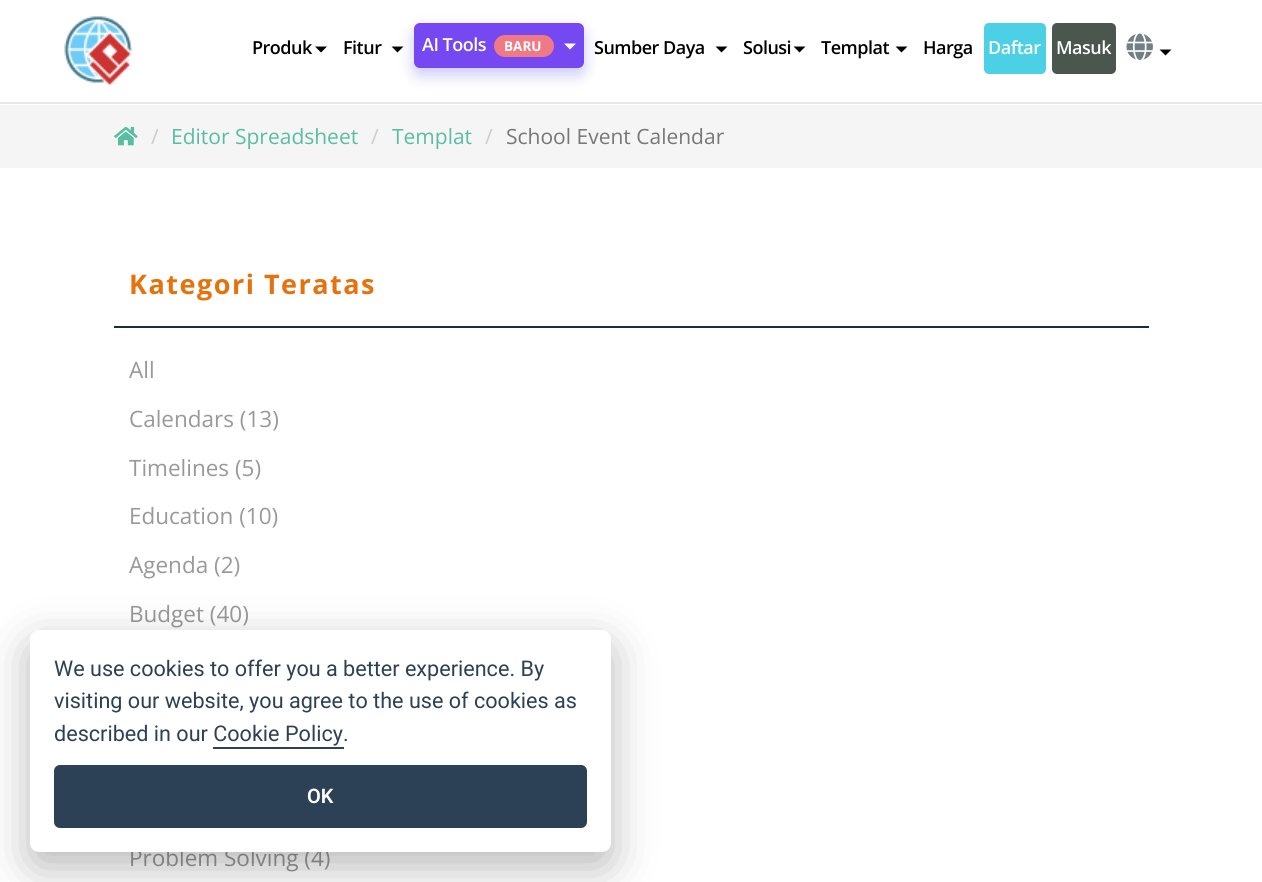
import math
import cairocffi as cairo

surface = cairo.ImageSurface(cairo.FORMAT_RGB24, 1262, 882)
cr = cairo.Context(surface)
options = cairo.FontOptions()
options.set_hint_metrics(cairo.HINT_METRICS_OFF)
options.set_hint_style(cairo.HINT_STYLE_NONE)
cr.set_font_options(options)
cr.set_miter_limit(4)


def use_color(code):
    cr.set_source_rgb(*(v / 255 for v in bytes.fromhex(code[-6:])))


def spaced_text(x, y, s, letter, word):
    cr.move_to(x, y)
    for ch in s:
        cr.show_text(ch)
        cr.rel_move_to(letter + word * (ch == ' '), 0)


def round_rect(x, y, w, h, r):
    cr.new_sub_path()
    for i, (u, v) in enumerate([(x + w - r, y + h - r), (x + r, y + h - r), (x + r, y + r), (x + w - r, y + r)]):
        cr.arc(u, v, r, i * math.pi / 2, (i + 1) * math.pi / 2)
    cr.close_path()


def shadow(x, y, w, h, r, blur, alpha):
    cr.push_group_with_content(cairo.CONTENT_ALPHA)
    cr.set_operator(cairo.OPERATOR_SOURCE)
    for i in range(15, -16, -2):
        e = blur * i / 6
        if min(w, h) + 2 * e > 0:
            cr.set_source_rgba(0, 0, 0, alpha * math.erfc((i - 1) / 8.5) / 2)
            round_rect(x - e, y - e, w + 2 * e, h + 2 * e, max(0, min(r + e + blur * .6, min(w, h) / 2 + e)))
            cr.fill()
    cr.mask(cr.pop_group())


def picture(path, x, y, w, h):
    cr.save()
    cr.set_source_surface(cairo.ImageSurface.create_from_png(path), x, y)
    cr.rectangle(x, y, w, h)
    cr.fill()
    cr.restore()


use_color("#ffffff")
cr.paint()
use_color("#e7e7e7")
cr.rectangle(0, 102, 1262, 2)
cr.fill()
picture("img1.png", 64, 16, 69, 70)
cr.select_font_face("Open Sans SemiBold")
cr.set_font_size(18)
use_color("#000000")
spaced_text(252, 54, "Produk", -0.5, 0)
cr.new_path()
cr.move_to(315, 46.5)
cr.line_to(327, 46.5)
cr.line_to(321, 52.5)
cr.close_path()
cr.fill()
spaced_text(343, 54, "Fitur", -0.5, 0)
cr.new_path()
cr.move_to(391.5, 46.5)
cr.line_to(403.5, 46.5)
cr.line_to(397.5, 52.5)
cr.close_path()
cr.fill()
use_color("#4c4ee5")
shadow(414, 30, 170, 45, 6, 7.5, 0.3)
use_color("#7548f1")
round_rect(414, 23, 170, 45, 6)
cr.fill()
use_color("#ffffff")
spaced_text(422, 51, "AI Tools", -0.5, 0)
use_color("#ef7a85")
round_rect(494, 35, 60, 22, 11)
cr.fill()
cr.select_font_face("Open Sans", cairo.FONT_SLANT_NORMAL, cairo.FONT_WEIGHT_BOLD)
cr.set_font_size(13.5)
use_color("#ffffff")
cr.move_to(504, 51)
cr.show_text("BARU")
cr.new_path()
cr.move_to(564, 43.5)
cr.line_to(576, 43.5)
cr.line_to(570, 49.5)
cr.close_path()
cr.fill()
cr.select_font_face("Open Sans SemiBold")
cr.set_font_size(18)
use_color("#000000")
spaced_text(594, 54, "Sumber Daya", -0.5, 0)
cr.new_path()
cr.move_to(715.5, 46.5)
cr.line_to(727.5, 46.5)
cr.line_to(721.5, 52.5)
cr.close_path()
cr.fill()
spaced_text(743, 54, "Solusi", -0.5, 0)
cr.new_path()
cr.move_to(793.5, 46.5)
cr.line_to(805.5, 46.5)
cr.line_to(799.5, 52.5)
cr.close_path()
cr.fill()
spaced_text(821, 54, "Templat", -0.5, 0)
cr.new_path()
cr.move_to(895.5, 46.5)
cr.line_to(907.5, 46.5)
cr.line_to(901.5, 52.5)
cr.close_path()
cr.fill()
spaced_text(923, 54, "Harga", -0.5, 0)
use_color("#4cd0e5")
round_rect(984, 23, 62, 51, 5)
cr.fill()
use_color("#ffffff")
spaced_text(988, 54, "Daftar", -0.5, 0)
use_color("#4a564e")
round_rect(1052, 23, 64, 51, 5)
cr.fill()
use_color("#ffffff")
spaced_text(1056, 54, "Masuk", -0.5, 0)
picture("img2.png", 1126, 33, 27, 27)
use_color("#000000")
cr.new_path()
cr.move_to(1159.5, 49.5)
cr.line_to(1171.5, 49.5)
cr.line_to(1165.5, 55.5)
cr.close_path()
cr.fill()
use_color("#f5f5f5")
cr.rectangle(0, 105, 1262, 63)
cr.fill()
picture("img3.png", 114, 126, 24, 20)
cr.select_font_face("Open Sans")
cr.set_font_size(21)
use_color("#cccccc")
cr.move_to(151, 144)
cr.show_text("/")
use_color("#57bea2")
cr.move_to(171, 144)
cr.show_text("Editor Spreadsheet")
use_color("#cccccc")
cr.move_to(371, 144)
cr.show_text("/")
use_color("#57bea2")
cr.move_to(392, 144)
cr.show_text("Templat")
use_color("#cccccc")
cr.move_to(485, 144)
cr.show_text("/")
use_color("#777777")
cr.move_to(506, 144)
cr.show_text("School Event Calendar")
use_color("#1d2e3b")
cr.rectangle(114, 326, 1035, 2)
cr.fill()
cr.select_font_face("Open Sans", cairo.FONT_SLANT_NORMAL, cairo.FONT_WEIGHT_BOLD)
cr.set_font_size(27)
use_color("#e6720d")
spaced_text(129, 294, "Kategori Teratas", 1.5, 0)
cr.select_font_face("Open Sans")
cr.set_font_size(22.5)
use_color("#999999")
cr.move_to(129, 378)
cr.show_text("All")
cr.move_to(129, 427)
cr.show_text("Calendars (13)")
cr.move_to(129, 476)
cr.show_text("Timelines (5)")
cr.move_to(129, 524)
cr.show_text("Education (10)")
cr.move_to(129, 573)
cr.show_text("Agenda (2)")
cr.move_to(129, 622)
cr.show_text("Budget (40)")
cr.move_to(129, 866)
cr.show_text("Problem Solving (4)")
use_color("#020203")
shadow(30, 645, 581, 222, 9, 22.5, 0.28)
use_color("#ffffff")
round_rect(30, 630, 581, 222, 9)
cr.fill()
cr.select_font_face("Roboto")
cr.set_font_size(21.6)
use_color("#2d4156")
cr.move_to(54, 676)
cr.show_text("We use cookies to offer you a better experience. By")
cr.move_to(54, 708)
cr.show_text("visiting our website, you agree to the use of cookies as")
cr.move_to(54, 741)
cr.show_text("described in our Cookie Policy.")
cr.rectangle(213, 747, 131, 2)
cr.fill()
round_rect(54, 765, 533, 63, 6)
cr.fill()
cr.select_font_face("Roboto SemiBold")
cr.set_font_size(20)
use_color("#ffffff")
cr.move_to(307, 803)
cr.show_text("OK")
surface.write_to_png("result.png")
